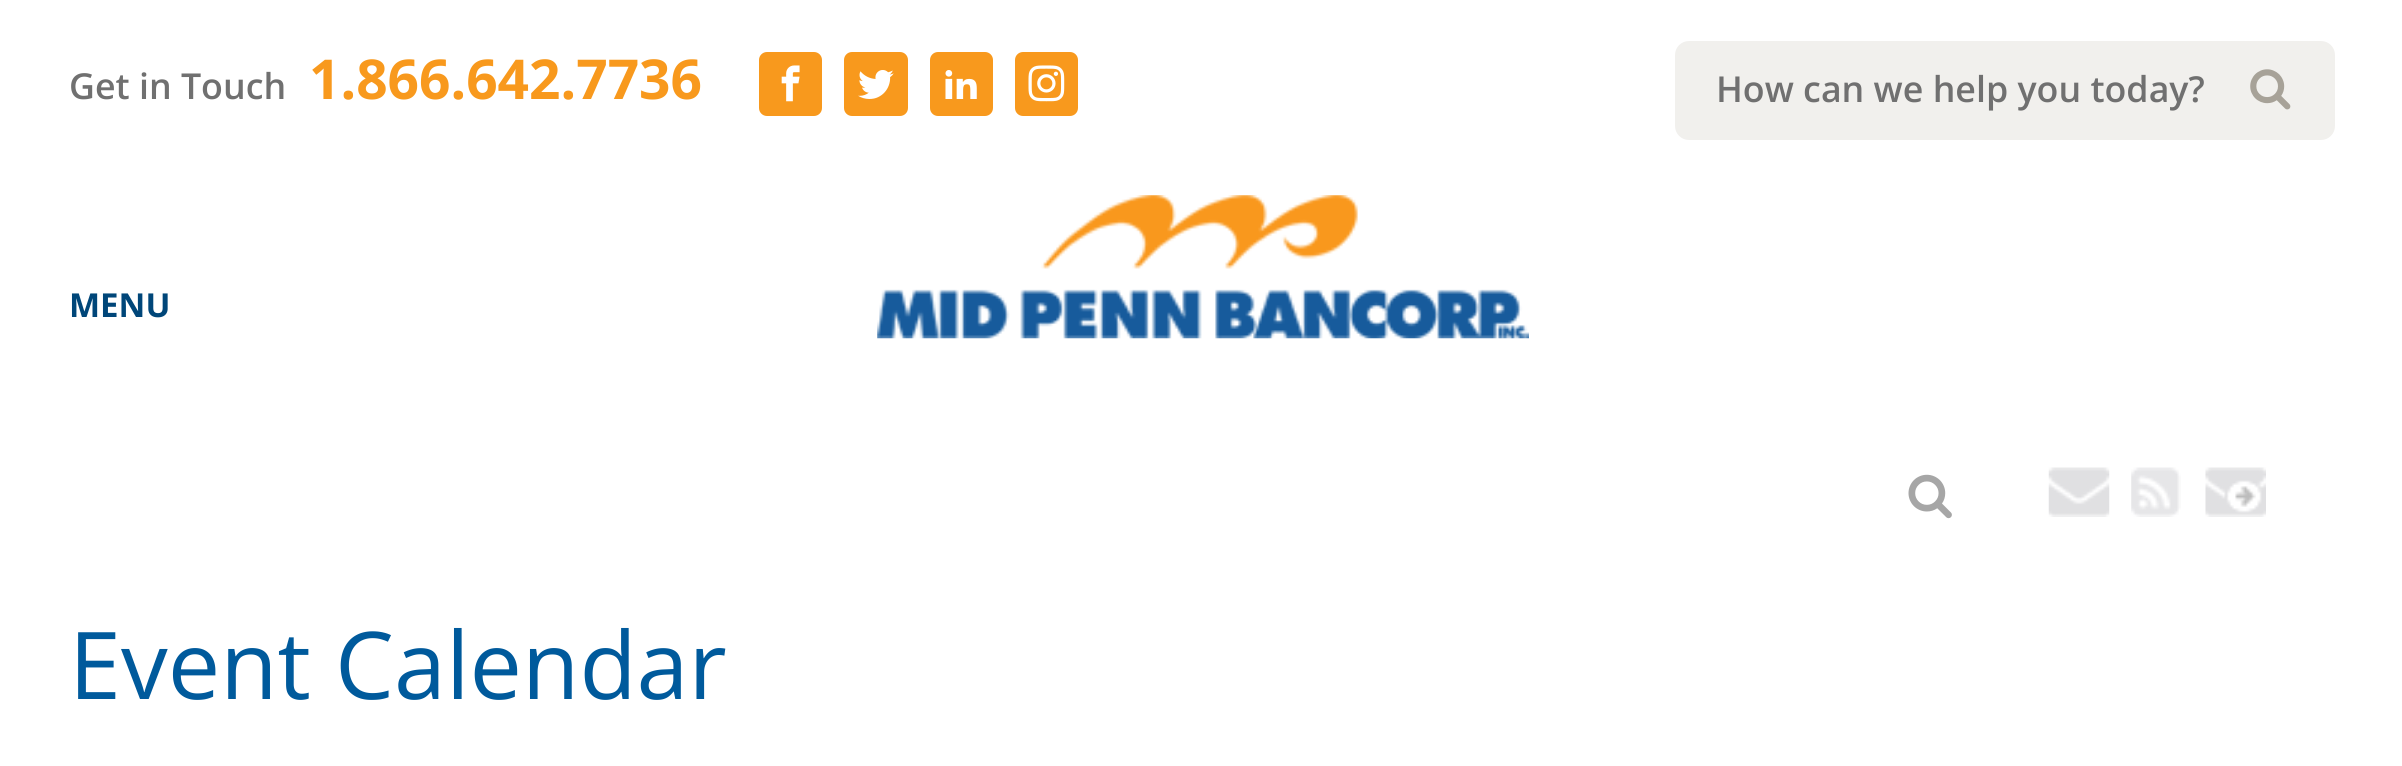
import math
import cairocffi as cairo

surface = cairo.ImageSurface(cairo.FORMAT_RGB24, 2402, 766)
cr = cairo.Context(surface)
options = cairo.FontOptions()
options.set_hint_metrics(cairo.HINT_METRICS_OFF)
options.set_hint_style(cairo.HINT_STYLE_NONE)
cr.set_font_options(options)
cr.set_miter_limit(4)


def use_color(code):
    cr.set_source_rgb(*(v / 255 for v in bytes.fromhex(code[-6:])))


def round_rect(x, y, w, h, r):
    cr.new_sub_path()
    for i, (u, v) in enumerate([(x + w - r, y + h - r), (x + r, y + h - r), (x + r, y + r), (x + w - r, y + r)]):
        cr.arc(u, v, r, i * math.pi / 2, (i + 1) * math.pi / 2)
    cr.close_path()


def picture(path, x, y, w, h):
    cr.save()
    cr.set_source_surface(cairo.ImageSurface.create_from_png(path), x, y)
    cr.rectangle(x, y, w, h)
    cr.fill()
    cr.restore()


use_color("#ffffff")
cr.paint()
cr.select_font_face("Open Sans SemiBold")
cr.set_font_size(35.75)
use_color("#707070")
cr.move_to(69, 99)
cr.show_text("Get in Touch")
cr.select_font_face("Open Sans", cairo.FONT_SLANT_NORMAL, cairo.FONT_WEIGHT_BOLD)
cr.set_font_size(55)
use_color("#f8991d")
cr.move_to(309, 99)
cr.show_text("1.866.642.7736")
round_rect(759, 52, 63, 64, 8)
cr.fill()
round_rect(844, 52, 64, 64, 8)
cr.fill()
round_rect(930, 52, 63, 64, 8)
cr.fill()
round_rect(1015, 52, 63, 64, 8)
cr.fill()
picture("img1.png", 781, 65, 19, 37)
picture("img2.png", 858, 70, 36, 29)
picture("img3.png", 945, 70, 32, 29)
picture("img4.png", 1028, 65, 37, 37)
use_color("#f1f0ed")
round_rect(1675, 41, 660, 99, 14)
cr.fill()
cr.select_font_face("Open Sans SemiBold")
cr.set_font_size(35.75)
use_color("#707070")
cr.move_to(1716, 102)
cr.show_text("How can we help you today?")
picture("img5.png", 2250, 69, 41, 41)
cr.select_font_face("Open Sans", cairo.FONT_SLANT_NORMAL, cairo.FONT_WEIGHT_BOLD)
cr.set_font_size(33)
use_color("#004679")
cr.move_to(69, 317)
cr.show_text("MENU")
picture("img6.png", 877, 195, 652, 144)
picture("img7.png", 1908, 474, 44, 45)
picture("img8.png", 2048, 467, 62, 50)
picture("img9.png", 2131, 467, 50, 50)
picture("img10.png", 2205, 467, 61, 50)
cr.select_font_face("Open Sans")
cr.set_font_size(93.5)
use_color("#005a9c")
cr.move_to(69, 699)
cr.show_text("Event Calendar")
surface.write_to_png("result.png")
